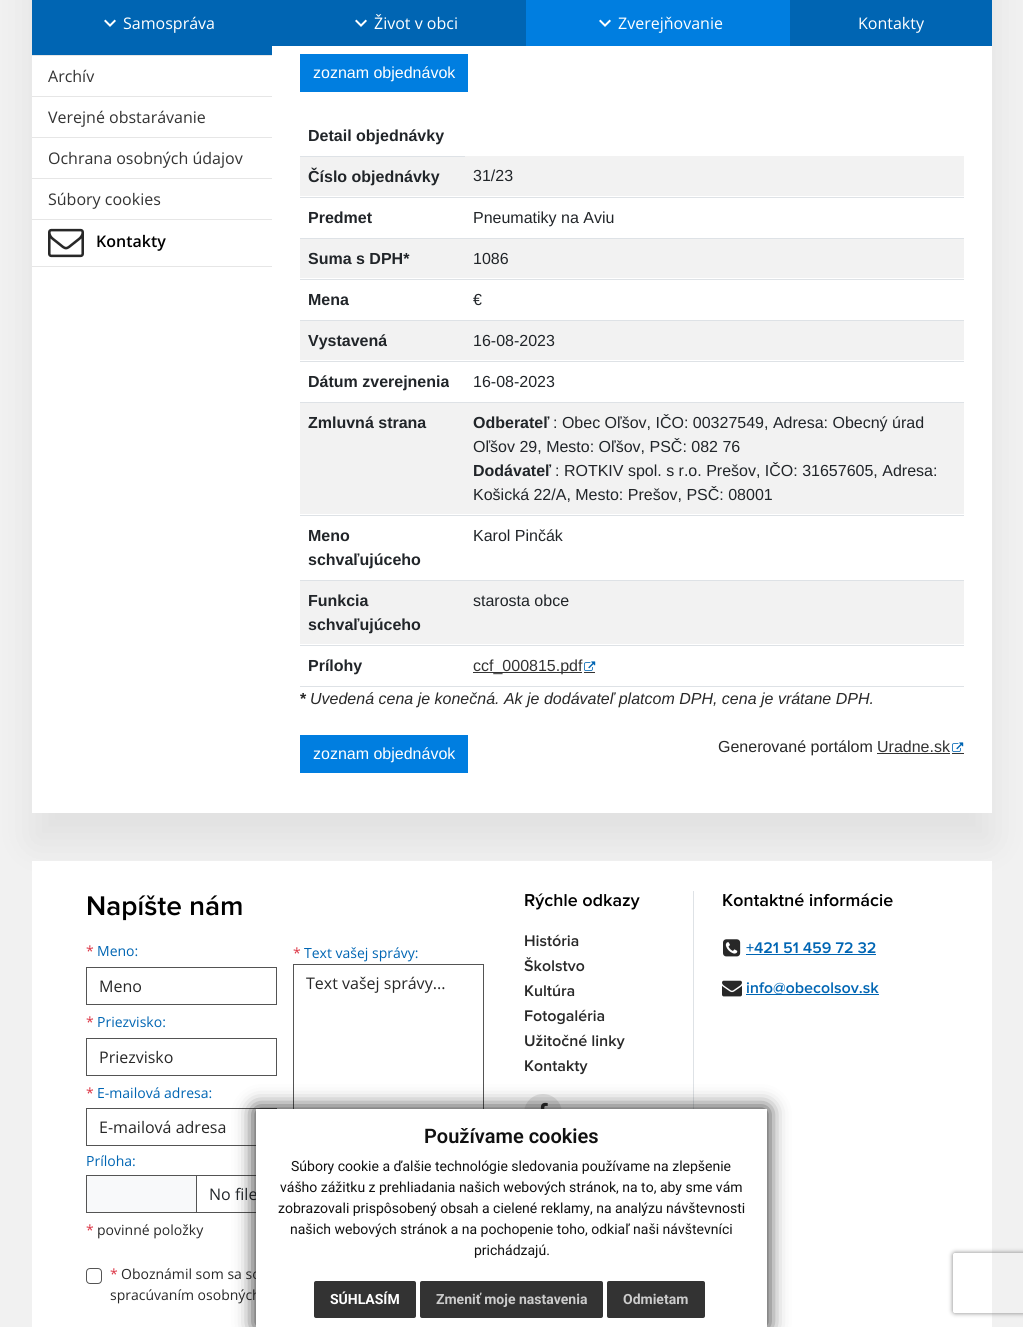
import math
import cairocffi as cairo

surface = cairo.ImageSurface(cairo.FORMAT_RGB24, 1023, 1327)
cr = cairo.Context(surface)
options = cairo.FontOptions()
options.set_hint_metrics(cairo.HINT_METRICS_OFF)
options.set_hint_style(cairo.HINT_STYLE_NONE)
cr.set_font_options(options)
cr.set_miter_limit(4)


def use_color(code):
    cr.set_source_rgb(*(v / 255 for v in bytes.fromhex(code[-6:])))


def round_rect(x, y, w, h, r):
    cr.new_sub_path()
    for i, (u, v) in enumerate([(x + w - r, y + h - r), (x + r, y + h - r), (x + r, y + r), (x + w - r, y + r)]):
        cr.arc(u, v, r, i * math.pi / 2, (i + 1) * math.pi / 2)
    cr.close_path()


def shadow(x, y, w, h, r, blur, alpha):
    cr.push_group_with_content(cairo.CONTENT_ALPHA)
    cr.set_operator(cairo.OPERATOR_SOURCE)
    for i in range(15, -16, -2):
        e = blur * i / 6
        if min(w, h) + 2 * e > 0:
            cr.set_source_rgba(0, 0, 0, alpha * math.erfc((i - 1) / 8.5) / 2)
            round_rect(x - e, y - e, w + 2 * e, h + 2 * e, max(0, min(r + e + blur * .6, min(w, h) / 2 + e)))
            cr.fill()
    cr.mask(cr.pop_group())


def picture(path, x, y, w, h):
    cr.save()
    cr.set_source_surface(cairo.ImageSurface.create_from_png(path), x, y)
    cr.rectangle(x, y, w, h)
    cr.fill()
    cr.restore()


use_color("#f1f1f1")
cr.paint()
use_color("#000000")
shadow(32, -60, 960, 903, 0, 20, 0.07)
use_color("#0065b3")
cr.rectangle(32, 0, 960, 46)
cr.fill()
picture("img1.png", 104, 19, 12, 8)
cr.select_font_face("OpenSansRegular")
cr.set_font_size(16)
use_color("#ffffff")
cr.move_to(123, 29)
cr.show_text("Samospráva")
picture("img1.png", 355, 19, 12, 8)
cr.move_to(374, 29)
cr.show_text("Život v obci")
use_color("#007ee0")
cr.rectangle(526, 0, 264, 46)
cr.fill()
picture("img2.png", 599, 19, 12, 8)
use_color("#ffffff")
cr.move_to(618, 29)
cr.show_text("Zverejňovanie")
cr.move_to(858, 29)
cr.show_text("Kontakty")
cr.rectangle(32, 46, 960, 767)
cr.fill()
use_color("#e6e6e6")
cr.rectangle(32, 55, 240, 1)
cr.fill()
use_color("#0065b3")
cr.rectangle(32, 46, 240, 9)
cr.fill()
use_color("#e6e6e6")
cr.rectangle(32, 96, 240, 1)
cr.fill()
use_color("#333333")
cr.move_to(48, 82)
cr.show_text("Archív")
use_color("#e6e6e6")
cr.rectangle(32, 137, 240, 1)
cr.fill()
use_color("#333333")
cr.move_to(48, 123)
cr.show_text("Verejné obstarávanie")
use_color("#e6e6e6")
cr.rectangle(32, 178, 240, 1)
cr.fill()
use_color("#333333")
cr.move_to(48, 164)
cr.show_text("Ochrana osobných údajov")
use_color("#e6e6e6")
cr.rectangle(32, 219, 240, 1)
cr.fill()
use_color("#333333")
cr.move_to(48, 205)
cr.show_text("Súbory cookies")
use_color("#e6e6e6")
cr.rectangle(32, 266, 240, 1)
cr.fill()
picture("img3.png", 48, 228, 36, 30)
cr.select_font_face("Open Sans SemiBold")
use_color("#000000")
cr.move_to(96, 247)
cr.show_text("Kontakty")
use_color("#007ee0")
cr.rectangle(300, 54, 168, 38)
cr.fill()
cr.select_font_face("Liberation Sans")
use_color("#ffffff")
cr.move_to(313, 78)
cr.show_text("zoznam objednávok")
use_color("#dee2e6")
cr.rectangle(300, 156, 165, 1)
cr.fill()
cr.select_font_face("Liberation Sans", cairo.FONT_SLANT_NORMAL, cairo.FONT_WEIGHT_BOLD)
use_color("#212529")
cr.move_to(308, 141)
cr.show_text("Detail objednávky")
use_color("#f2f2f2")
cr.rectangle(300, 157, 165, 39)
cr.fill()
use_color("#212529")
cr.move_to(308, 182)
cr.show_text("Číslo objednávky")
use_color("#f2f2f2")
cr.rectangle(465, 156, 499, 40)
cr.fill()
use_color("#dee2e6")
cr.rectangle(300, 197, 664, 1)
cr.fill()
cr.select_font_face("Liberation Sans")
use_color("#212529")
cr.move_to(473, 181)
cr.show_text("31/23")
cr.select_font_face("Liberation Sans", cairo.FONT_SLANT_NORMAL, cairo.FONT_WEIGHT_BOLD)
cr.move_to(308, 223)
cr.show_text("Predmet")
use_color("#dee2e6")
cr.rectangle(300, 238, 664, 1)
cr.fill()
cr.select_font_face("Liberation Sans")
use_color("#212529")
cr.move_to(473, 223)
cr.show_text("Pneumatiky na Aviu")
use_color("#f2f2f2")
cr.rectangle(300, 239, 664, 39)
cr.fill()
cr.select_font_face("Liberation Sans", cairo.FONT_SLANT_NORMAL, cairo.FONT_WEIGHT_BOLD)
use_color("#212529")
cr.move_to(308, 264)
cr.show_text("Suma s DPH*")
use_color("#dee2e6")
cr.rectangle(300, 279, 664, 1)
cr.fill()
cr.select_font_face("Liberation Sans")
use_color("#212529")
cr.move_to(473, 264)
cr.show_text("1086")
cr.select_font_face("Liberation Sans", cairo.FONT_SLANT_NORMAL, cairo.FONT_WEIGHT_BOLD)
cr.move_to(308, 305)
cr.show_text("Mena")
use_color("#dee2e6")
cr.rectangle(300, 320, 664, 1)
cr.fill()
cr.select_font_face("Liberation Sans")
use_color("#212529")
cr.move_to(473, 305)
cr.show_text("€")
use_color("#f2f2f2")
cr.rectangle(300, 321, 664, 39)
cr.fill()
cr.select_font_face("Liberation Sans", cairo.FONT_SLANT_NORMAL, cairo.FONT_WEIGHT_BOLD)
use_color("#212529")
cr.move_to(308, 346)
cr.show_text("Vystavená")
use_color("#dee2e6")
cr.rectangle(300, 361, 664, 1)
cr.fill()
cr.select_font_face("Liberation Sans")
use_color("#212529")
cr.move_to(473, 346)
cr.show_text("16-08-2023")
cr.select_font_face("Liberation Sans", cairo.FONT_SLANT_NORMAL, cairo.FONT_WEIGHT_BOLD)
cr.move_to(308, 387)
cr.show_text("Dátum zverejnenia")
use_color("#dee2e6")
cr.rectangle(300, 402, 664, 1)
cr.fill()
cr.select_font_face("Liberation Sans")
use_color("#212529")
cr.move_to(473, 387)
cr.show_text("16-08-2023")
use_color("#f2f2f2")
cr.rectangle(300, 403, 664, 111)
cr.fill()
cr.select_font_face("Liberation Sans", cairo.FONT_SLANT_NORMAL, cairo.FONT_WEIGHT_BOLD)
use_color("#212529")
cr.move_to(308, 428)
cr.show_text("Zmluvná strana")
use_color("#dee2e6")
cr.rectangle(300, 515, 664, 1)
cr.fill()
use_color("#212529")
cr.move_to(473, 428)
cr.show_text("Odberateľ")
cr.select_font_face("Liberation Sans")
cr.move_to(553, 428)
cr.show_text(": Obec Oľšov, IČO: 00327549, Adresa: Obecný úrad")
cr.move_to(473, 452)
cr.show_text("Oľšov 29, Mesto: Oľšov, PSČ: 082 76")
cr.select_font_face("Liberation Sans", cairo.FONT_SLANT_NORMAL, cairo.FONT_WEIGHT_BOLD)
cr.move_to(473, 476)
cr.show_text("Dodávateľ")
cr.select_font_face("Liberation Sans")
cr.move_to(555, 476)
cr.show_text(": ROTKIV spol. s r.o. Prešov, IČO: 31657605, Adresa:")
cr.move_to(473, 500)
cr.show_text("Košická 22/A, Mesto: Prešov, PSČ: 08001")
cr.select_font_face("Liberation Sans", cairo.FONT_SLANT_NORMAL, cairo.FONT_WEIGHT_BOLD)
cr.move_to(308, 541)
cr.show_text("Meno")
cr.move_to(308, 565)
cr.show_text("schvaľujúceho")
use_color("#dee2e6")
cr.rectangle(300, 580, 664, 1)
cr.fill()
cr.select_font_face("Liberation Sans")
use_color("#212529")
cr.move_to(473, 541)
cr.show_text("Karol Pinčák")
use_color("#f2f2f2")
cr.rectangle(300, 581, 664, 63)
cr.fill()
cr.select_font_face("Liberation Sans", cairo.FONT_SLANT_NORMAL, cairo.FONT_WEIGHT_BOLD)
use_color("#212529")
cr.move_to(308, 606)
cr.show_text("Funkcia")
cr.move_to(308, 630)
cr.show_text("schvaľujúceho")
use_color("#dee2e6")
cr.rectangle(300, 645, 664, 1)
cr.fill()
cr.select_font_face("Liberation Sans")
use_color("#212529")
cr.move_to(473, 606)
cr.show_text("starosta obce")
cr.select_font_face("Liberation Sans", cairo.FONT_SLANT_NORMAL, cairo.FONT_WEIGHT_BOLD)
cr.move_to(308, 671)
cr.show_text("Prílohy")
use_color("#dee2e6")
cr.rectangle(300, 686, 664, 1)
cr.fill()
use_color("#333333")
cr.rectangle(473, 672, 109, 1)
cr.fill()
cr.select_font_face("Liberation Sans")
cr.move_to(473, 671)
cr.show_text("ccf_000815.pdf")
cr.rectangle(584, 672, 11, 1)
cr.fill()
picture("img4.png", 584, 661, 12, 10)
cr.select_font_face("Liberation Sans", cairo.FONT_SLANT_NORMAL, cairo.FONT_WEIGHT_BOLD)
use_color("#282828")
cr.move_to(300, 704)
cr.show_text("*")
cr.select_font_face("Liberation Sans", cairo.FONT_SLANT_ITALIC)
cr.move_to(310, 704)
cr.show_text("Uvedená cena je konečná. Ak je dodávateľ platcom DPH, cena je vrátane DPH.")
use_color("#007ee0")
cr.rectangle(300, 735, 168, 38)
cr.fill()
cr.select_font_face("Liberation Sans")
use_color("#ffffff")
cr.move_to(313, 759)
cr.show_text("zoznam objednávok")
use_color("#282828")
cr.move_to(718, 752)
cr.show_text("Generované portálom")
use_color("#333333")
cr.move_to(877, 752)
cr.show_text("Uradne.sk")
cr.rectangle(877, 753, 73, 1)
cr.fill()
cr.rectangle(952, 753, 12, 1)
cr.fill()
picture("img4.png", 952, 742, 12, 10)
use_color("#ffffff")
cr.rectangle(32, 861, 960, 466)
cr.fill()
picture("img5.png", 88, 895, 154, 26)
cr.select_font_face("OpenSansRegular")
cr.set_font_size(14)
use_color("#dc3545")
cr.move_to(86, 956)
cr.show_text("*")
use_color("#0065b3")
cr.move_to(97, 956)
cr.show_text("Meno:")
cr.rectangle(86.5, 967.5, 190, 37)
use_color("#545454")
cr.set_line_width(1)
cr.stroke()
cr.set_font_size(16)
use_color("#282828")
cr.move_to(99, 992)
cr.show_text("Meno")
cr.set_font_size(14)
use_color("#dc3545")
cr.move_to(86, 1027)
cr.show_text("*")
use_color("#0065b3")
cr.move_to(97, 1027)
cr.show_text("Priezvisko:")
cr.rectangle(86.5, 1038.5, 190, 37)
use_color("#545454")
cr.stroke()
cr.set_font_size(16)
use_color("#282828")
cr.move_to(99, 1063)
cr.show_text("Priezvisko")
cr.set_font_size(14)
use_color("#dc3545")
cr.move_to(86, 1098)
cr.show_text("*")
use_color("#0065b3")
cr.move_to(97, 1098)
cr.show_text("E-mailová adresa:")
cr.rectangle(86.5, 1108.5, 190, 37)
use_color("#545454")
cr.stroke()
cr.set_font_size(16)
use_color("#282828")
cr.move_to(99, 1133)
cr.show_text("E-mailová adresa")
cr.set_font_size(14)
use_color("#dc3545")
cr.move_to(293, 958)
cr.show_text("*")
use_color("#0065b3")
cr.move_to(304, 958)
cr.show_text("Text vašej správy:")
cr.rectangle(293.5, 964.5, 190, 181)
use_color("#545454")
cr.stroke()
cr.set_font_size(16)
use_color("#282828")
cr.move_to(306, 989)
cr.show_text("Text vašej správy...")
cr.set_font_size(14)
use_color("#0065b3")
cr.move_to(86, 1166)
cr.show_text("Príloha:")
cr.rectangle(86.5, 1175.5, 397, 37)
use_color("#545454")
cr.stroke()
use_color("#f8f9fa")
cr.rectangle(87, 1176, 109, 36)
cr.fill()
use_color("#545454")
cr.rectangle(196, 1176, 1, 36)
cr.fill()
cr.set_font_size(16)
use_color("#212529")
cr.move_to(209, 1200)
cr.show_text("No file")
cr.set_font_size(14)
use_color("#dc3545")
cr.move_to(86, 1235)
cr.show_text("*")
use_color("#282828")
cr.move_to(97, 1235)
cr.show_text("povinné položky")
round_rect(86.5, 1268.5, 15, 15, 3.5)
use_color("#545454")
cr.stroke()
use_color("#dc3545")
cr.move_to(110, 1279)
cr.show_text("*")
use_color("#282828")
cr.move_to(121, 1279)
cr.show_text("Oboznámil som sa so")
cr.move_to(110, 1300)
cr.show_text("spracúvaním osobných")
use_color("#dee2e6")
cr.rectangle(693, 891, 1, 218)
cr.fill()
picture("img6.png", 525, 893, 115, 17)
picture("img7.png", 525, 934, 54, 13)
picture("img8.png", 524, 957, 61, 15)
picture("img9.png", 525, 984, 50, 13)
picture("img10.png", 525, 1009, 80, 16)
picture("img11.png", 525, 1034, 100, 16)
picture("img12.png", 525, 1060, 63, 15)
use_color("#e6e6e6")
cr.arc(543, 1113, 19, 0, 2 * math.pi)
cr.fill()
picture("img13.png", 540, 1102, 8, 7)
picture("img14.png", 723, 893, 170, 14)
picture("img15.png", 723, 939, 18, 18)
picture("img16.png", 746, 942, 130, 12)
use_color("#0065b3")
cr.rectangle(746, 954, 130, 1)
cr.fill()
picture("img17.png", 722, 980, 20, 17)
picture("img18.png", 746, 982, 133, 12)
cr.rectangle(746, 994, 133, 1)
cr.fill()
use_color("#111111")
shadow(256, 1109, 511, 218, 0, 10, 1)
use_color("#ffffff")
cr.rectangle(256, 1109, 511, 218)
cr.fill()
cr.select_font_face("Roboto SemiBold")
cr.set_font_size(20)
use_color("#111111")
cr.move_to(424, 1143)
cr.show_text("Používame cookies")
cr.select_font_face("Roboto")
cr.set_font_size(14)
cr.move_to(291, 1171)
cr.show_text("Súbory cookie a ďalšie technológie sledovania používame na zlepšenie")
cr.move_to(280, 1192)
cr.show_text("vášho zážitku z prehliadania našich webových stránok, na to, aby sme vám")
cr.move_to(278, 1213)
cr.show_text("zobrazovali prispôsobený obsah a cielené reklamy, na analýzu návštevnosti")
cr.move_to(290, 1234)
cr.show_text("našich webových stránok a na pochopenie toho, odkiaľ naši návštevníci")
cr.move_to(474, 1255)
cr.show_text("prichádzajú.")
use_color("#333333")
round_rect(314, 1281, 102, 37, 2)
cr.fill()
cr.select_font_face("Roboto", cairo.FONT_SLANT_NORMAL, cairo.FONT_WEIGHT_BOLD)
use_color("#ffffff")
cr.move_to(330, 1304)
cr.show_text("SÚHLASÍM")
use_color("#333333")
round_rect(420, 1281, 183, 37, 2)
cr.fill()
use_color("#cccccc")
cr.move_to(436, 1304)
cr.show_text("Zmeniť moje nastavenia")
use_color("#333333")
round_rect(607, 1281, 98, 37, 2)
cr.fill()
use_color("#cccccc")
cr.move_to(623, 1304)
cr.show_text("Odmietam")
cr.save()
cr.set_fill_rule(cairo.FILL_RULE_EVEN_ODD)
cr.new_path()
cr.move_to(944, 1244)
cr.line_to(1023, 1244)
cr.line_to(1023, 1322)
cr.line_to(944, 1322)
cr.close_path()
cr.move_to(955, 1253)
cr.line_to(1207, 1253)
cr.curve_to(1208, 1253, 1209, 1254, 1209, 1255)
cr.line_to(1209, 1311)
cr.curve_to(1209, 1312, 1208, 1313, 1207, 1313)
cr.line_to(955, 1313)
cr.curve_to(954, 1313, 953, 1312, 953, 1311)
cr.line_to(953, 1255)
cr.curve_to(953, 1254, 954, 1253, 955, 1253)
cr.close_path()
cr.clip()
use_color("#808080")
shadow(953, 1253, 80, 60, 2, 2.5, 1)
cr.restore()
surface.write_to_png("result.png")
